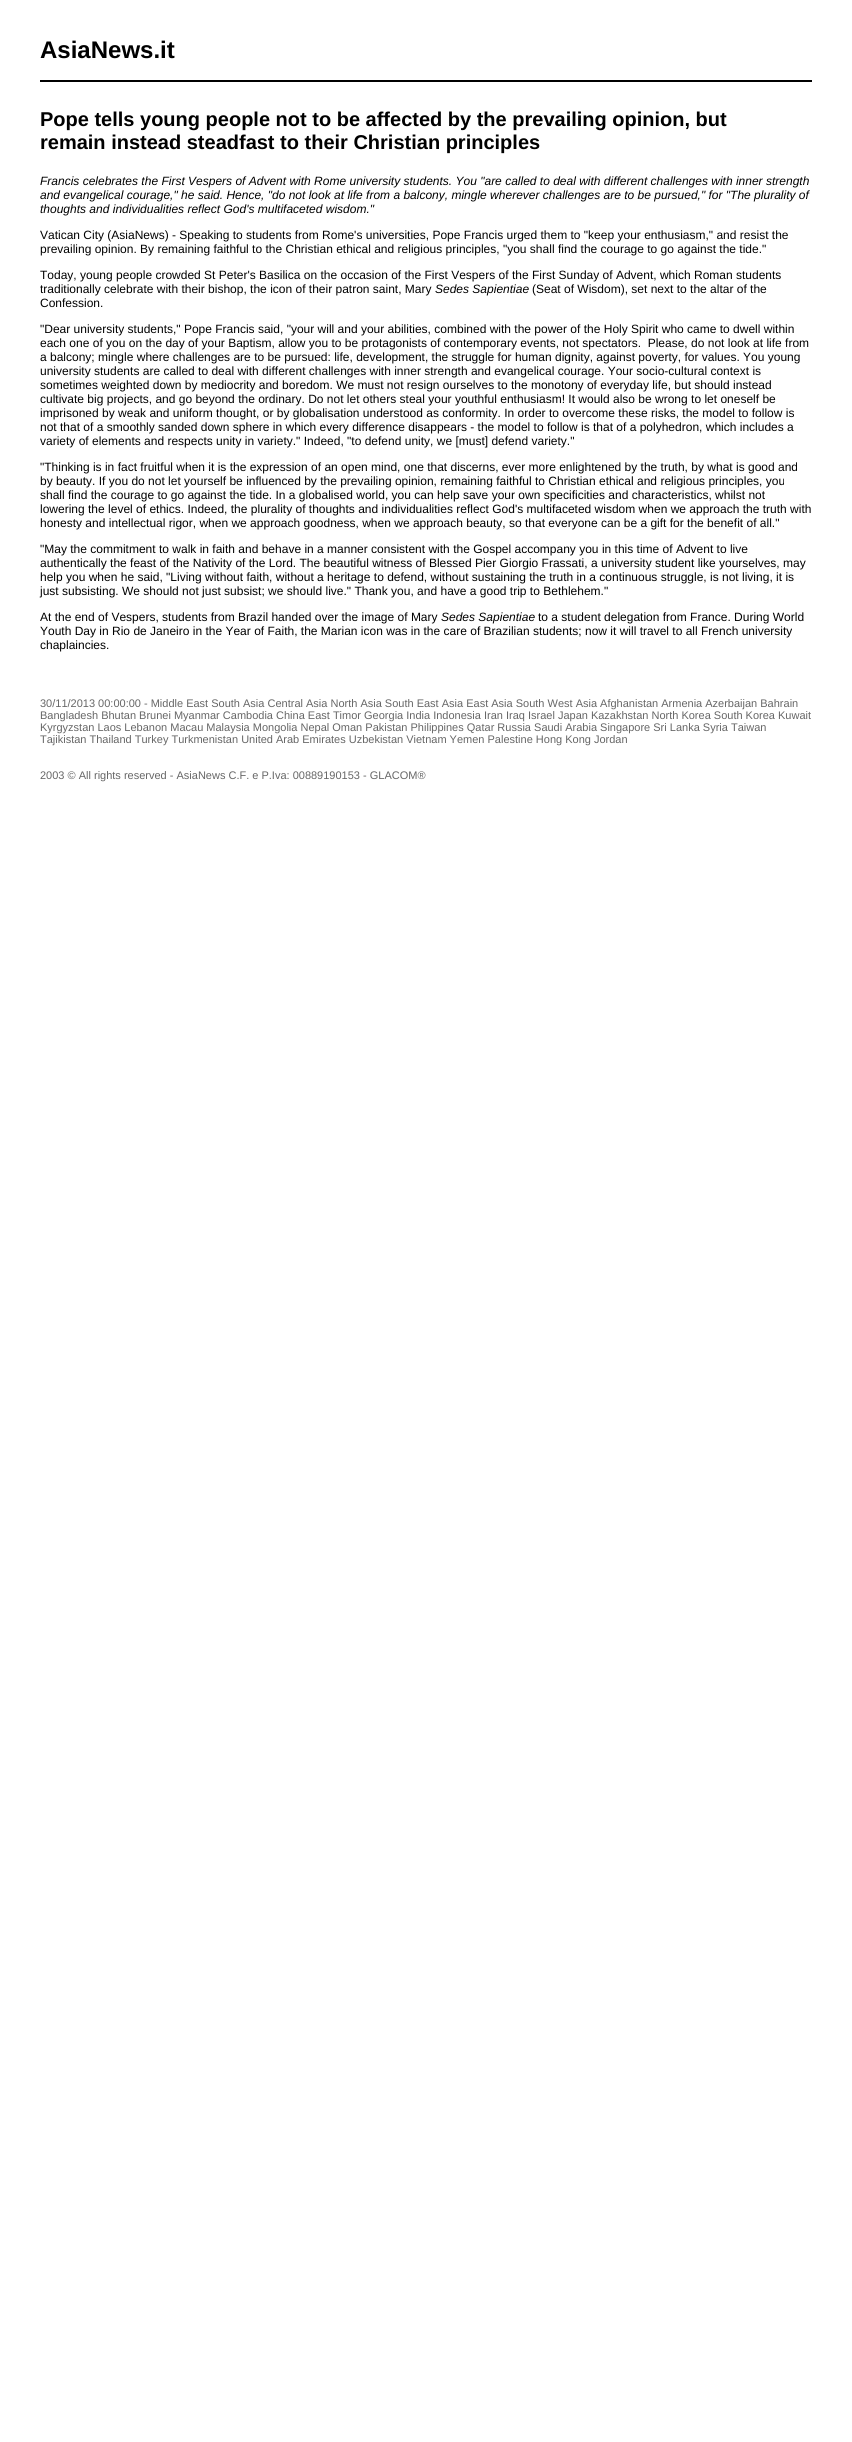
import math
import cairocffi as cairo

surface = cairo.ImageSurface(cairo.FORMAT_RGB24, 852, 2442)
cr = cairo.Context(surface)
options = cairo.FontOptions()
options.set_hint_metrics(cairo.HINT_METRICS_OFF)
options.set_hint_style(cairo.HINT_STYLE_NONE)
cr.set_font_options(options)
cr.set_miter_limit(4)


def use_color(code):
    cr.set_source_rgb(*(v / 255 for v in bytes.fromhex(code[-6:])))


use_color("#ffffff")
cr.paint()
cr.select_font_face("Liberation Sans", cairo.FONT_SLANT_NORMAL, cairo.FONT_WEIGHT_BOLD)
cr.set_font_size(24)
use_color("#000000")
cr.move_to(40, 58)
cr.show_text("AsiaNews.it")
cr.rectangle(40, 80, 772, 2)
cr.fill()
cr.set_font_size(20)
cr.move_to(40, 126)
cr.show_text("Pope tells young people not to be affected by the prevailing opinion, but")
cr.move_to(40, 149)
cr.show_text("remain instead steadfast to their Christian principles")
cr.select_font_face("Liberation Sans", cairo.FONT_SLANT_ITALIC)
cr.set_font_size(12)
cr.move_to(40, 185)
cr.show_text("Francis celebrates the First Vespers of Advent with Rome university students. You \"are called to deal with different challenges with inner strength")
cr.move_to(40, 199)
cr.show_text("and evangelical courage,\" he said. Hence, \"do not look at life from a balcony, mingle wherever challenges are to be pursued,\" for \"The plurality of")
cr.move_to(40, 213)
cr.show_text("thoughts and individualities reflect God's multifaceted wisdom.\"")
cr.select_font_face("Liberation Sans")
cr.move_to(40, 239)
cr.show_text("Vatican City (AsiaNews) - Speaking to students from Rome's universities, Pope Francis urged them to \"keep your enthusiasm,\" and resist the")
cr.move_to(40, 253)
cr.show_text("prevailing opinion. By remaining faithful to the Christian ethical and religious principles, \"you shall find the courage to go against the tide.\"")
cr.move_to(40, 279)
cr.show_text("Today, young people crowded St Peter's Basilica on the occasion of the First Vespers of the First Sunday of Advent, which Roman students")
cr.move_to(40, 293)
cr.show_text("traditionally celebrate with their bishop, the icon of their patron saint, Mary")
cr.select_font_face("Liberation Sans", cairo.FONT_SLANT_ITALIC)
cr.move_to(435, 293)
cr.show_text("Sedes Sapientiae")
cr.select_font_face("Liberation Sans")
cr.move_to(532, 293)
cr.show_text("(Seat of Wisdom), set next to the altar of the")
cr.move_to(40, 307)
cr.show_text("Confession.")
cr.move_to(40, 333)
cr.show_text("\"Dear university students,\" Pope Francis said, \"your will and your abilities, combined with the power of the Holy Spirit who came to dwell within")
cr.move_to(40, 347)
cr.show_text("each one of you on the day of your Baptism, allow you to be protagonists of contemporary events, not spectators.  Please, do not look at life from")
cr.move_to(40, 361)
cr.show_text("a balcony; mingle where challenges are to be pursued: life, development, the struggle for human dignity, against poverty, for values. You young")
cr.move_to(40, 375)
cr.show_text("university students are called to deal with different challenges with inner strength and evangelical courage. Your socio-cultural context is")
cr.move_to(40, 389)
cr.show_text("sometimes weighted down by mediocrity and boredom. We must not resign ourselves to the monotony of everyday life, but should instead")
cr.move_to(40, 403)
cr.show_text("cultivate big projects, and go beyond the ordinary. Do not let others steal your youthful enthusiasm! It would also be wrong to let oneself be")
cr.move_to(40, 417)
cr.show_text("imprisoned by weak and uniform thought, or by globalisation understood as conformity. In order to overcome these risks, the model to follow is")
cr.move_to(40, 431)
cr.show_text("not that of a smoothly sanded down sphere in which every difference disappears - the model to follow is that of a polyhedron, which includes a")
cr.move_to(40, 445)
cr.show_text("variety of elements and respects unity in variety.\" Indeed, \"to defend unity, we [must] defend variety.\"")
cr.move_to(40, 471)
cr.show_text("\"Thinking is in fact fruitful when it is the expression of an open mind, one that discerns, ever more enlightened by the truth, by what is good and")
cr.move_to(40, 485)
cr.show_text("by beauty. If you do not let yourself be influenced by the prevailing opinion, remaining faithful to Christian ethical and religious principles, you")
cr.move_to(40, 499)
cr.show_text("shall find the courage to go against the tide. In a globalised world, you can help save your own specificities and characteristics, whilst not")
cr.move_to(40, 513)
cr.show_text("lowering the level of ethics. Indeed, the plurality of thoughts and individualities reflect God's multifaceted wisdom when we approach the truth with")
cr.move_to(40, 527)
cr.show_text("honesty and intellectual rigor, when we approach goodness, when we approach beauty, so that everyone can be a gift for the benefit of all.\"")
cr.move_to(40, 553)
cr.show_text("\"May the commitment to walk in faith and behave in a manner consistent with the Gospel accompany you in this time of Advent to live")
cr.move_to(40, 567)
cr.show_text("authentically the feast of the Nativity of the Lord. The beautiful witness of Blessed Pier Giorgio Frassati, a university student like yourselves, may")
cr.move_to(40, 581)
cr.show_text("help you when he said, \"Living without faith, without a heritage to defend, without sustaining the truth in a continuous struggle, is not living, it is")
cr.move_to(40, 595)
cr.show_text("just subsisting. We should not just subsist; we should live.\" Thank you, and have a good trip to Bethlehem.\"")
cr.move_to(40, 621)
cr.show_text("At the end of Vespers, students from Brazil handed over the image of Mary")
cr.select_font_face("Liberation Sans", cairo.FONT_SLANT_ITALIC)
cr.move_to(441, 621)
cr.show_text("Sedes Sapientiae")
cr.select_font_face("Liberation Sans")
cr.move_to(538, 621)
cr.show_text("to a student delegation from France. During World")
cr.move_to(40, 635)
cr.show_text("Youth Day in Rio de Janeiro in the Year of Faith, the Marian icon was in the care of Brazilian students; now it will travel to all French university")
cr.move_to(40, 649)
cr.show_text("chaplaincies.")
cr.set_font_size(11)
use_color("#666666")
cr.move_to(40, 707)
cr.show_text("30/11/2013 00:00:00 - Middle East South Asia Central Asia North Asia South East Asia East Asia South West Asia Afghanistan Armenia Azerbaijan Bahrain")
cr.move_to(40, 719)
cr.show_text("Bangladesh Bhutan Brunei Myanmar Cambodia China East Timor Georgia India Indonesia Iran Iraq Israel Japan Kazakhstan North Korea South Korea Kuwait")
cr.move_to(40, 731)
cr.show_text("Kyrgyzstan Laos Lebanon Macau Malaysia Mongolia Nepal Oman Pakistan Philippines Qatar Russia Saudi Arabia Singapore Sri Lanka Syria Taiwan")
cr.move_to(40, 743)
cr.show_text("Tajikistan Thailand Turkey Turkmenistan United Arab Emirates Uzbekistan Vietnam Yemen Palestine Hong Kong Jordan")
cr.move_to(40, 779)
cr.show_text("2003 © All rights reserved - AsiaNews C.F. e P.Iva: 00889190153 - GLACOM®")
surface.write_to_png("result.png")
